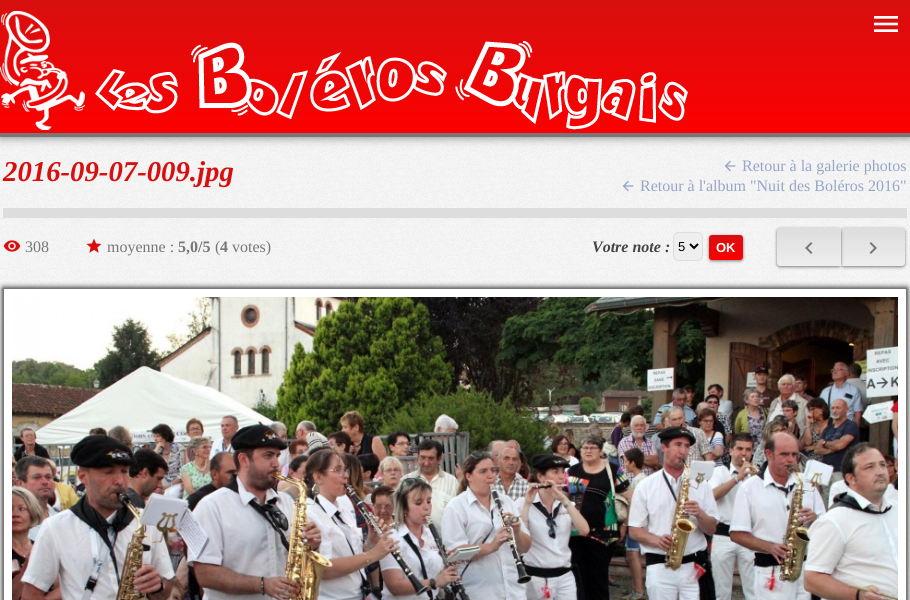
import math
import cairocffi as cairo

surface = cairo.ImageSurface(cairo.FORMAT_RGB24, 910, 600)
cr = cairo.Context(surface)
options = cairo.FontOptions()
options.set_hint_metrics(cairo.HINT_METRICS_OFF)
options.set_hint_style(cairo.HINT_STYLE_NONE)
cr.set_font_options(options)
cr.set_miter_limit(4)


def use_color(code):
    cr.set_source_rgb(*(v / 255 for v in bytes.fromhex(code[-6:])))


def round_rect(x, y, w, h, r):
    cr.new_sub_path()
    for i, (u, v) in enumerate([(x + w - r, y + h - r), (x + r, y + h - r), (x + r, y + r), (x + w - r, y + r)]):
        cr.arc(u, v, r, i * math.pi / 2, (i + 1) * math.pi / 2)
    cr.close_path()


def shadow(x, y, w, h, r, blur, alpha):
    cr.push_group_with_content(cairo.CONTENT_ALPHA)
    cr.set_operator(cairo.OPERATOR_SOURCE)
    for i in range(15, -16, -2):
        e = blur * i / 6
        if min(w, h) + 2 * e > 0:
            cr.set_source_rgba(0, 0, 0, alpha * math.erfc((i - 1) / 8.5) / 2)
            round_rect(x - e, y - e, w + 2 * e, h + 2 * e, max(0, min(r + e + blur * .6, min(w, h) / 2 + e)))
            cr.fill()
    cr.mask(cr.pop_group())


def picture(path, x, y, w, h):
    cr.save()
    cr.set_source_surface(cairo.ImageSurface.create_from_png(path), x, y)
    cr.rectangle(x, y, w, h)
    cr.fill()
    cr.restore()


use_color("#ffffff")
cr.paint()
picture("img1.png", 0, 137, 910, 463)
use_color("#777777")
shadow(0, 0, 910, 137, 0, 5, 1)
gradient = cairo.LinearGradient(455, 0, 455, 133)
gradient.add_color_stop_rgba(0, 0.847, 0.059, 0.059, 1)
gradient.add_color_stop_rgba(1, 0.988, 0, 0, 1)
cr.set_source(gradient)
cr.rectangle(0, 0, 910, 133)
cr.fill()
picture("img2.png", 874, 16, 24, 16)
use_color("#777777")
cr.rectangle(0, 133, 910, 4)
cr.fill()
picture("img3.png", 0, 11, 688, 119)
cr.select_font_face("Liberation Serif", cairo.FONT_SLANT_ITALIC, cairo.FONT_WEIGHT_BOLD)
cr.set_font_size(28.75)
use_color("#d80f0f")
cr.move_to(3, 181)
cr.show_text("2016-09-07-009.jpg")
picture("img4.png", 724, 160, 12, 12)
cr.select_font_face("Liberation Serif")
cr.set_font_size(16)
use_color("#97a6c6")
cr.move_to(742, 171)
cr.show_text("Retour à la galerie photos")
picture("img5.png", 622, 180, 12, 12)
cr.move_to(640, 191)
cr.show_text("Retour à l'album \"Nuit des Boléros 2016\"")
use_color("#dddddd")
cr.rectangle(3, 208, 904, 10)
cr.fill()
picture("img6.png", 3, 240, 18, 12)
use_color("#777777")
cr.move_to(25, 252)
cr.show_text("308")
picture("img7.png", 86, 238, 16, 15)
cr.move_to(107, 252)
cr.show_text("moyenne :")
cr.select_font_face("Liberation Serif", cairo.FONT_SLANT_NORMAL, cairo.FONT_WEIGHT_BOLD)
cr.move_to(178, 252)
cr.show_text("5,0/5")
cr.select_font_face("Liberation Serif")
cr.move_to(215, 252)
cr.show_text("(")
cr.select_font_face("Liberation Serif", cairo.FONT_SLANT_NORMAL, cairo.FONT_WEIGHT_BOLD)
cr.move_to(220, 252)
cr.show_text("4")
cr.select_font_face("Liberation Serif")
cr.move_to(232, 252)
cr.show_text("votes)")
cr.select_font_face("Liberation Serif", cairo.FONT_SLANT_ITALIC, cairo.FONT_WEIGHT_BOLD)
use_color("#444444")
cr.move_to(592, 252)
cr.show_text("Votre note :")
use_color("#efefef")
round_rect(673.5, 232.5, 29, 28, 5.5)
cr.fill_preserve()
use_color("#dddddd")
cr.set_line_width(1)
cr.stroke()
cr.new_path()
cr.move_to(690, 244)
cr.line_to(694, 248)
cr.line_to(698, 244)
use_color("#000000")
cr.set_line_width(2)
cr.stroke()
cr.select_font_face("Liberation Sans")
cr.set_font_size(13)
cr.move_to(678, 251)
cr.show_text("5")
use_color("#000000")
shadow(709, 236, 34, 25, 3, 1.5, 0.5)
gradient = cairo.LinearGradient(726, 235, 726, 260)
gradient.add_color_stop_rgba(0, 0.847, 0.059, 0.059, 1)
gradient.add_color_stop_rgba(1, 0.988, 0, 0, 1)
cr.set_source(gradient)
round_rect(709, 235, 34, 25, 3)
cr.fill()
cr.select_font_face("Liberation Sans", cairo.FONT_SLANT_NORMAL, cairo.FONT_WEIGHT_BOLD)
use_color("#ffffff")
cr.move_to(716, 252)
cr.show_text("OK")
use_color("#000000")
shadow(841, 229, 64, 38, 3, 1.5, 0.5)
gradient = cairo.LinearGradient(873, 228, 873, 266)
gradient.add_color_stop_rgba(0, 0.867, 0.867, 0.867, 1)
gradient.add_color_stop_rgba(1, 0.933, 0.933, 0.933, 1)
cr.set_source(gradient)
cr.new_path()
cr.move_to(841, 228)
cr.line_to(902, 228)
cr.curve_to(903.5, 228, 905, 229.5, 905, 231)
cr.line_to(905, 263)
cr.curve_to(905, 264.5, 903.5, 266, 902, 266)
cr.line_to(841, 266)
cr.close_path()
cr.fill()
use_color("#000000")
shadow(777, 229, 64, 38, 3, 1.5, 0.5)
gradient = cairo.LinearGradient(809, 228, 809, 266)
gradient.add_color_stop_rgba(0, 0.867, 0.867, 0.867, 1)
gradient.add_color_stop_rgba(1, 0.933, 0.933, 0.933, 1)
cr.set_source(gradient)
cr.new_path()
cr.move_to(780, 228)
cr.line_to(841, 228)
cr.line_to(841, 266)
cr.line_to(780, 266)
cr.curve_to(778.5, 266, 777, 264.5, 777, 263)
cr.line_to(777, 231)
cr.curve_to(777, 229.5, 778.5, 228, 780, 228)
cr.close_path()
cr.fill()
picture("img8.png", 805, 242, 8, 12)
picture("img9.png", 869, 242, 8, 12)
use_color("#000000")
shadow(3, 288, 904, 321, 0, 3, 1)
use_color("#ffffff")
cr.rectangle(3.5, 288.5, 903, 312)
cr.fill_preserve()
use_color("#777777")
cr.set_line_width(1)
cr.stroke()
picture("img10.png", 12, 297, 886, 303)
surface.write_to_png("result.png")
